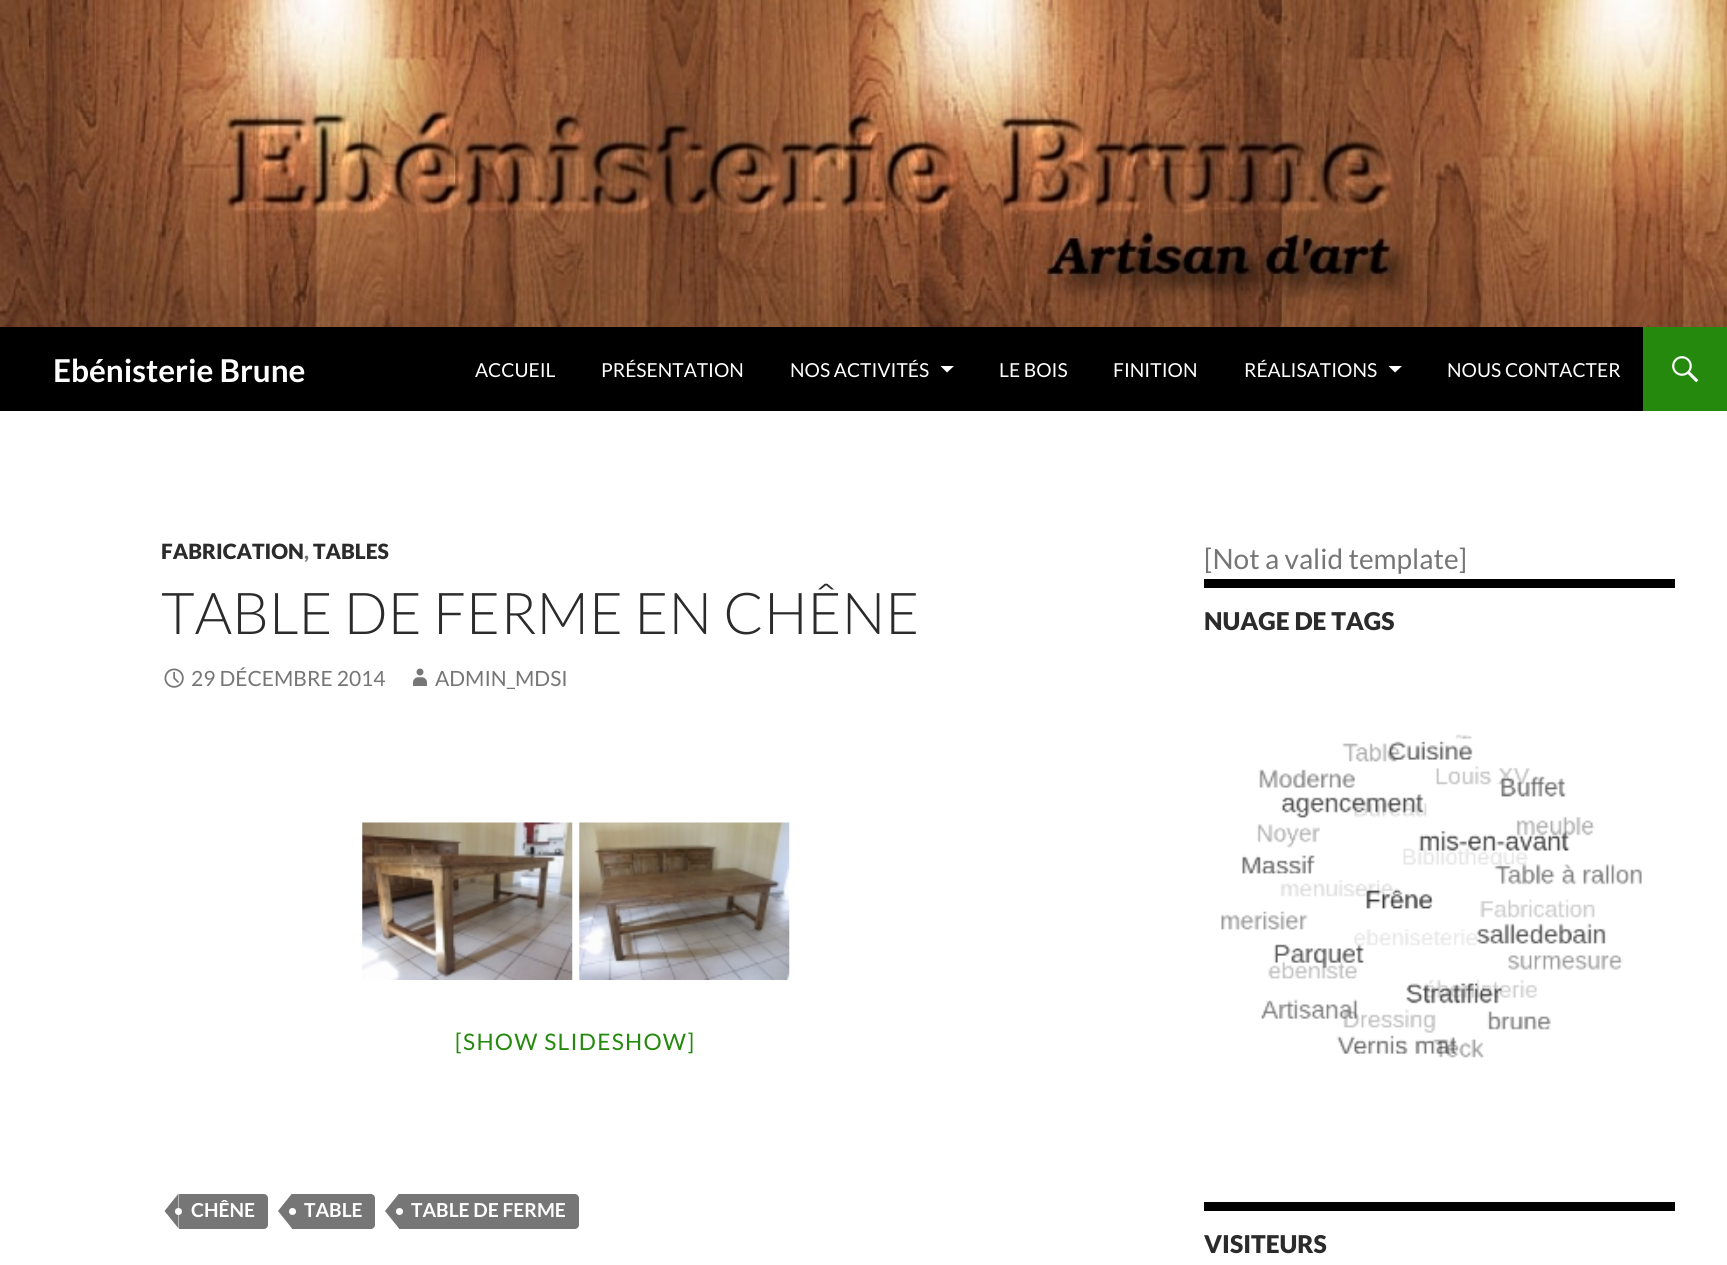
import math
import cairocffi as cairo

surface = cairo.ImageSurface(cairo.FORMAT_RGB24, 1727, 1265)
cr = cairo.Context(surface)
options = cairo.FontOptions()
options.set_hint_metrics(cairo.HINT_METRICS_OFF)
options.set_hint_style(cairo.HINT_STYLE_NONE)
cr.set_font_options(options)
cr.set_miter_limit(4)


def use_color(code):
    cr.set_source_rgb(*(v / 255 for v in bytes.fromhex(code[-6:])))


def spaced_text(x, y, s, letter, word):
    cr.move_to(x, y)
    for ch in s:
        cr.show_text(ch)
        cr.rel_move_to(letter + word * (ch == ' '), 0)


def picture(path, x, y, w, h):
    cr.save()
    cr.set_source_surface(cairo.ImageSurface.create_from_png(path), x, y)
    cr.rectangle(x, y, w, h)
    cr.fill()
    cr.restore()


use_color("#ffffff")
cr.paint()
picture("img1.png", 0, 0, 1727, 327)
use_color("#000000")
cr.rectangle(0, 327, 1643, 84)
cr.fill()
cr.select_font_face("Lato", cairo.FONT_SLANT_NORMAL, cairo.FONT_WEIGHT_BOLD)
cr.set_font_size(31.5)
use_color("#ffffff")
cr.move_to(53, 382)
cr.show_text("Ebénisterie Brune")
cr.select_font_face("Lato")
cr.set_font_size(19.25)
cr.move_to(475, 377)
cr.show_text("ACCUEIL")
cr.move_to(601, 377)
cr.show_text("PRÉSENTATION")
cr.move_to(790, 377)
cr.show_text("NOS ACTIVITÉS")
cr.new_path()
cr.move_to(940.5, 366)
cr.line_to(947, 372.5)
cr.line_to(954, 366)
cr.close_path()
cr.fill()
cr.move_to(999, 377)
cr.show_text("LE BOIS")
cr.move_to(1113, 377)
cr.show_text("FINITION")
cr.move_to(1244, 377)
cr.show_text("RÉALISATIONS")
cr.new_path()
cr.move_to(1388.5, 366)
cr.line_to(1395, 372.5)
cr.line_to(1402, 366)
cr.close_path()
cr.fill()
cr.move_to(1447, 377)
cr.show_text("NOUS CONTACTER")
use_color("#24890d")
cr.rectangle(1643, 327, 84, 84)
cr.fill()
picture("img2.png", 1672, 356, 27, 27)
cr.select_font_face("Lato Black")
cr.set_font_size(21)
use_color("#2b2b2b")
cr.move_to(161, 559)
cr.show_text("FABRICATION")
use_color("#767676")
cr.move_to(304, 559)
cr.show_text(",")
use_color("#2b2b2b")
cr.move_to(313, 559)
cr.show_text("TABLES")
cr.select_font_face("Lato Light")
cr.set_font_size(57.75)
cr.move_to(161, 634)
cr.show_text("TABLE DE FERME EN CHÊNE")
picture("img3.png", 164, 668, 20, 20)
cr.select_font_face("Lato")
cr.set_font_size(21)
use_color("#767676")
cr.move_to(191, 686)
cr.show_text("29 DÉCEMBRE 2014")
picture("img4.png", 413, 668, 14, 18)
cr.move_to(435, 686)
cr.show_text("ADMIN_MDSI")
picture("img5.png", 362, 822, 211, 158)
picture("img6.png", 579, 822, 211, 158)
cr.set_font_size(22.75)
use_color("#24890d")
spaced_text(455, 1050, "[SHOW SLIDESHOW]", 1.25, 0)
use_color("#767676")
cr.new_path()
cr.move_to(179, 1194)
cr.line_to(264, 1194)
cr.curve_to(266, 1194, 268, 1196, 268, 1198)
cr.line_to(268, 1225)
cr.curve_to(268, 1227, 266, 1229, 264, 1229)
cr.line_to(179, 1229)
cr.close_path()
cr.fill()
cr.new_path()
cr.move_to(178.5, 1193.5)
cr.line_to(178.5, 1228.5)
cr.line_to(164.5, 1211)
cr.close_path()
cr.fill()
cr.select_font_face("Lato", cairo.FONT_SLANT_NORMAL, cairo.FONT_WEIGHT_BOLD)
cr.set_font_size(19.25)
use_color("#ffffff")
cr.move_to(191, 1217)
cr.show_text("CHÊNE")
cr.new_path()
cr.arc(178.5, 1211.5, 3.5, 0, 2 * math.pi)
cr.fill()
use_color("#767676")
cr.new_path()
cr.move_to(292, 1194)
cr.line_to(371, 1194)
cr.curve_to(373, 1194, 375, 1196, 375, 1198)
cr.line_to(375, 1225)
cr.curve_to(375, 1227, 373, 1229, 371, 1229)
cr.line_to(292, 1229)
cr.close_path()
cr.fill()
cr.new_path()
cr.move_to(292, 1193.5)
cr.line_to(292, 1228.5)
cr.line_to(278, 1211)
cr.close_path()
cr.fill()
use_color("#ffffff")
cr.arc(292.5, 1211.5, 3.5, 0, 2 * math.pi)
cr.fill()
cr.move_to(304, 1217)
cr.show_text("TABLE")
use_color("#767676")
cr.new_path()
cr.move_to(399, 1194)
cr.line_to(575, 1194)
cr.curve_to(577, 1194, 579, 1196, 579, 1198)
cr.line_to(579, 1225)
cr.curve_to(579, 1227, 577, 1229, 575, 1229)
cr.line_to(399, 1229)
cr.close_path()
cr.fill()
cr.new_path()
cr.move_to(399, 1193.5)
cr.line_to(399, 1228.5)
cr.line_to(385, 1211)
cr.close_path()
cr.fill()
use_color("#ffffff")
cr.arc(399.5, 1211.5, 3.5, 0, 2 * math.pi)
cr.fill()
cr.move_to(411, 1217)
cr.show_text("TABLE DE FERME")
cr.select_font_face("Lato")
cr.set_font_size(28)
use_color("#767676")
cr.move_to(1204, 569)
cr.show_text("[Not a valid template]")
use_color("#000000")
cr.rectangle(1204, 579, 471, 9)
cr.fill()
cr.select_font_face("Lato Black")
cr.set_font_size(24.5)
use_color("#2b2b2b")
cr.move_to(1204, 630)
cr.show_text("NUAGE DE TAGS")
picture("img7.png", 1221, 734, 421, 324)
use_color("#000000")
cr.rectangle(1204, 1202, 471, 9)
cr.fill()
use_color("#2b2b2b")
cr.move_to(1204, 1253)
cr.show_text("VISITEURS")
surface.write_to_png("result.png")
